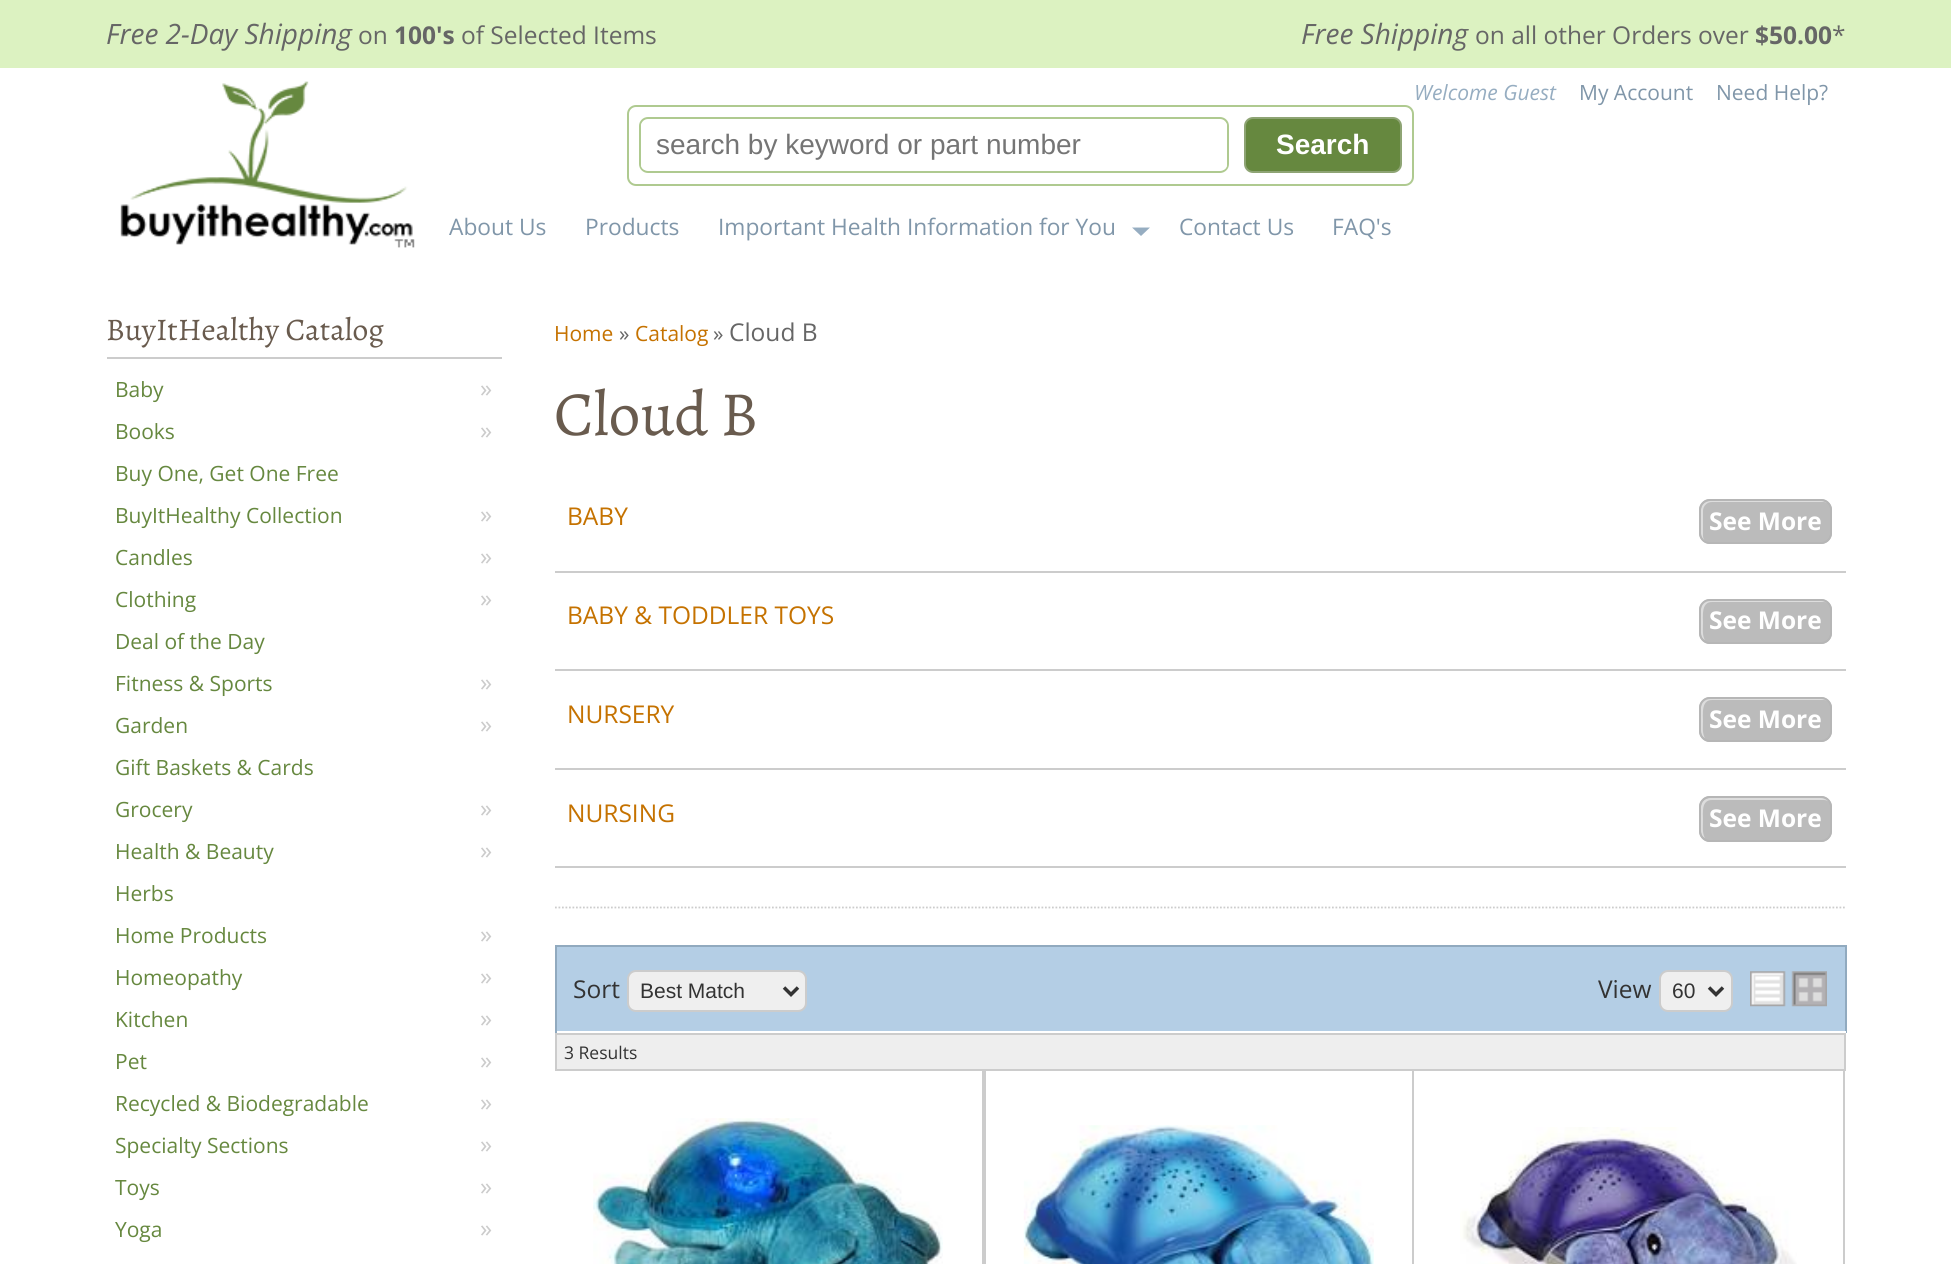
import math
import cairocffi as cairo

surface = cairo.ImageSurface(cairo.FORMAT_RGB24, 1951, 1264)
cr = cairo.Context(surface)
options = cairo.FontOptions()
options.set_hint_metrics(cairo.HINT_METRICS_OFF)
options.set_hint_style(cairo.HINT_STYLE_NONE)
cr.set_font_options(options)
cr.set_miter_limit(4)


def use_color(code):
    cr.set_source_rgb(*(v / 255 for v in bytes.fromhex(code[-6:])))


def round_rect(x, y, w, h, r):
    cr.new_sub_path()
    for i, (u, v) in enumerate([(x + w - r, y + h - r), (x + r, y + h - r), (x + r, y + r), (x + w - r, y + r)]):
        cr.arc(u, v, r, i * math.pi / 2, (i + 1) * math.pi / 2)
    cr.close_path()


def picture(path, x, y, w, h):
    cr.save()
    cr.set_source_surface(cairo.ImageSurface.create_from_png(path), x, y)
    cr.rectangle(x, y, w, h)
    cr.fill()
    cr.restore()


use_color("#ffffff")
cr.paint()
use_color("#dcf2c1")
cr.rectangle(0, 0, 1951, 68)
cr.fill()
cr.select_font_face("Open Sans", cairo.FONT_SLANT_ITALIC)
cr.set_font_size(28)
use_color("#666666")
cr.move_to(106, 44)
cr.show_text("Free 2-Day Shipping")
cr.select_font_face("Open Sans")
cr.set_font_size(24.5)
cr.move_to(358, 44)
cr.show_text("on")
cr.select_font_face("Open Sans", cairo.FONT_SLANT_NORMAL, cairo.FONT_WEIGHT_BOLD)
cr.move_to(394, 44)
cr.show_text("100's")
cr.select_font_face("Open Sans")
cr.move_to(461, 44)
cr.show_text("of Selected Items")
cr.select_font_face("Open Sans", cairo.FONT_SLANT_ITALIC)
cr.set_font_size(28)
cr.move_to(1301, 44)
cr.show_text("Free Shipping")
cr.select_font_face("Open Sans")
cr.set_font_size(24.5)
cr.move_to(1475, 44)
cr.show_text("on all other Orders over")
cr.select_font_face("Open Sans", cairo.FONT_SLANT_NORMAL, cairo.FONT_WEIGHT_BOLD)
cr.move_to(1755, 44)
cr.show_text("$50.00")
cr.select_font_face("Open Sans")
cr.move_to(1832, 44)
cr.show_text("*")
cr.select_font_face("Open Sans", cairo.FONT_SLANT_ITALIC)
cr.set_font_size(21)
use_color("#96adc1")
cr.move_to(1414, 100)
cr.show_text("Welcome Guest")
cr.select_font_face("Open Sans")
use_color("#8096a9")
cr.move_to(1579, 100)
cr.show_text("My Account")
cr.move_to(1716, 100)
cr.show_text("Need Help?")
round_rect(628, 106, 785, 79, 8)
use_color("#afca90")
cr.stroke()
round_rect(640, 118, 588, 54, 8)
cr.stroke()
use_color("#ffffff")
round_rect(641, 121, 586, 49, 5)
cr.fill()
cr.select_font_face("Liberation Sans")
cr.set_font_size(28)
use_color("#757575")
cr.move_to(656, 154)
cr.show_text("search by keyword or part number")
use_color("#66883f")
round_rect(1245, 118, 156, 54, 8)
cr.fill_preserve()
use_color("#8ea474")
cr.stroke()
cr.select_font_face("Liberation Sans", cairo.FONT_SLANT_NORMAL, cairo.FONT_WEIGHT_BOLD)
use_color("#ffffff")
cr.move_to(1276, 154)
cr.show_text("Search")
picture("img1.png", 120, 81, 295, 167)
cr.select_font_face("Open Sans")
cr.set_font_size(22.75)
use_color("#8096a9")
cr.move_to(449, 235)
cr.show_text("About Us")
cr.move_to(585, 235)
cr.show_text("Products")
cr.move_to(718, 235)
cr.show_text("Important Health Information for You")
use_color("#96adc1")
cr.new_path()
cr.move_to(1132, 227.5)
cr.line_to(1150, 227.5)
cr.line_to(1141, 236)
cr.close_path()
cr.fill()
use_color("#8096a9")
cr.move_to(1179, 235)
cr.show_text("Contact Us")
cr.move_to(1332, 235)
cr.show_text("FAQ's")
use_color("#cccccc")
cr.rectangle(107, 357, 395, 2)
cr.fill()
cr.select_font_face("Alegreya")
cr.set_font_size(31.5)
use_color("#695b4e")
cr.move_to(106, 340)
cr.show_text("BuyItHealthy Catalog")
cr.select_font_face("Open Sans")
cr.set_font_size(21)
use_color("#66883f")
cr.move_to(115, 397)
cr.show_text("Baby")
cr.set_font_size(24.5)
use_color("#cccccc")
cr.move_to(480, 397)
cr.show_text("»")
cr.set_font_size(21)
use_color("#66883f")
cr.move_to(115, 439)
cr.show_text("Books")
cr.set_font_size(24.5)
use_color("#cccccc")
cr.move_to(480, 439)
cr.show_text("»")
cr.set_font_size(21)
use_color("#66883f")
cr.move_to(115, 481)
cr.show_text("Buy One, Get One Free")
cr.move_to(115, 523)
cr.show_text("BuyItHealthy Collection")
cr.set_font_size(24.5)
use_color("#cccccc")
cr.move_to(480, 523)
cr.show_text("»")
cr.set_font_size(21)
use_color("#66883f")
cr.move_to(115, 565)
cr.show_text("Candles")
cr.set_font_size(24.5)
use_color("#cccccc")
cr.move_to(480, 565)
cr.show_text("»")
cr.set_font_size(21)
use_color("#66883f")
cr.move_to(115, 607)
cr.show_text("Clothing")
cr.set_font_size(24.5)
use_color("#cccccc")
cr.move_to(480, 607)
cr.show_text("»")
cr.set_font_size(21)
use_color("#66883f")
cr.move_to(115, 649)
cr.show_text("Deal of the Day")
cr.move_to(115, 691)
cr.show_text("Fitness & Sports")
cr.set_font_size(24.5)
use_color("#cccccc")
cr.move_to(480, 691)
cr.show_text("»")
cr.set_font_size(21)
use_color("#66883f")
cr.move_to(115, 733)
cr.show_text("Garden")
cr.set_font_size(24.5)
use_color("#cccccc")
cr.move_to(480, 733)
cr.show_text("»")
cr.set_font_size(21)
use_color("#66883f")
cr.move_to(115, 775)
cr.show_text("Gift Baskets & Cards")
cr.move_to(115, 817)
cr.show_text("Grocery")
cr.set_font_size(24.5)
use_color("#cccccc")
cr.move_to(480, 817)
cr.show_text("»")
cr.set_font_size(21)
use_color("#66883f")
cr.move_to(115, 859)
cr.show_text("Health & Beauty")
cr.set_font_size(24.5)
use_color("#cccccc")
cr.move_to(480, 859)
cr.show_text("»")
cr.set_font_size(21)
use_color("#66883f")
cr.move_to(115, 901)
cr.show_text("Herbs")
cr.move_to(115, 943)
cr.show_text("Home Products")
cr.set_font_size(24.5)
use_color("#cccccc")
cr.move_to(480, 943)
cr.show_text("»")
cr.set_font_size(21)
use_color("#66883f")
cr.move_to(115, 985)
cr.show_text("Homeopathy")
cr.set_font_size(24.5)
use_color("#cccccc")
cr.move_to(480, 985)
cr.show_text("»")
cr.set_font_size(21)
use_color("#66883f")
cr.move_to(115, 1027)
cr.show_text("Kitchen")
cr.set_font_size(24.5)
use_color("#cccccc")
cr.move_to(480, 1027)
cr.show_text("»")
cr.set_font_size(21)
use_color("#66883f")
cr.move_to(115, 1069)
cr.show_text("Pet")
cr.set_font_size(24.5)
use_color("#cccccc")
cr.move_to(480, 1069)
cr.show_text("»")
cr.set_font_size(21)
use_color("#66883f")
cr.move_to(115, 1111)
cr.show_text("Recycled & Biodegradable")
cr.set_font_size(24.5)
use_color("#cccccc")
cr.move_to(480, 1111)
cr.show_text("»")
cr.set_font_size(21)
use_color("#66883f")
cr.move_to(115, 1153)
cr.show_text("Specialty Sections")
cr.set_font_size(24.5)
use_color("#cccccc")
cr.move_to(480, 1153)
cr.show_text("»")
cr.set_font_size(21)
use_color("#66883f")
cr.move_to(115, 1195)
cr.show_text("Toys")
cr.set_font_size(24.5)
use_color("#cccccc")
cr.move_to(480, 1195)
cr.show_text("»")
cr.set_font_size(21)
use_color("#66883f")
cr.move_to(115, 1237)
cr.show_text("Yoga")
cr.set_font_size(24.5)
use_color("#cccccc")
cr.move_to(480, 1237)
cr.show_text("»")
cr.set_font_size(21)
use_color("#c57200")
cr.move_to(554, 341)
cr.show_text("Home")
use_color("#666666")
cr.move_to(619, 341)
cr.show_text("»")
use_color("#c57200")
cr.move_to(635, 341)
cr.show_text("Catalog")
use_color("#666666")
cr.move_to(713, 341)
cr.show_text("»")
cr.set_font_size(24.5)
cr.move_to(729, 341)
cr.show_text("Cloud B")
cr.select_font_face("Alegreya")
cr.set_font_size(63)
use_color("#695b4e")
cr.move_to(554, 435)
cr.show_text("Cloud B")
use_color("#cccccc")
cr.rectangle(555, 571, 1291, 2)
cr.fill()
cr.select_font_face("Open Sans")
cr.set_font_size(24.5)
use_color("#c57200")
cr.move_to(567, 525)
cr.show_text("BABY")
use_color("#bbbbbb")
round_rect(1699, 499, 133, 45, 11)
cr.fill()
use_color("#dddddd")
cr.new_path()
cr.move_to(1712, 502)
cr.line_to(1824, 502)
cr.curve_to(1825, 502, 1827, 503, 1828, 503)
cr.curve_to(1827, 502, 1824, 501, 1822, 501)
cr.line_to(1710, 501)
cr.curve_to(1705, 501, 1701, 505, 1701, 510)
cr.line_to(1701, 534)
cr.curve_to(1701, 538, 1703, 541, 1707, 542)
cr.curve_to(1704, 541, 1703, 538, 1703, 536)
cr.line_to(1703, 511)
cr.curve_to(1703, 506, 1707, 502, 1712, 502)
cr.close_path()
cr.fill()
round_rect(1700, 500, 131, 43, 10)
use_color("#b6b6b6")
cr.stroke()
cr.select_font_face("Open Sans", cairo.FONT_SLANT_NORMAL, cairo.FONT_WEIGHT_BOLD)
use_color("#ffffff")
cr.move_to(1709, 530)
cr.show_text("See More")
use_color("#cccccc")
cr.rectangle(555, 669, 1291, 2)
cr.fill()
cr.select_font_face("Open Sans")
use_color("#c57200")
cr.move_to(567, 624)
cr.show_text("BABY & TODDLER TOYS")
use_color("#bbbbbb")
round_rect(1699, 599, 133, 45, 11)
cr.fill()
use_color("#dddddd")
cr.new_path()
cr.move_to(1712, 602)
cr.line_to(1824, 602)
cr.curve_to(1826, 602, 1829, 603, 1830, 606)
cr.curve_to(1829, 602, 1826, 600, 1822, 600)
cr.line_to(1710, 600)
cr.curve_to(1705, 600, 1701, 604, 1701, 609)
cr.line_to(1701, 633)
cr.curve_to(1701, 636, 1702, 639, 1705, 640)
cr.curve_to(1702, 636, 1703, 628, 1703, 623)
cr.curve_to(1703, 616, 1701, 602, 1712, 602)
cr.close_path()
cr.fill()
round_rect(1700, 600, 131, 43, 10)
use_color("#b6b6b6")
cr.stroke()
cr.select_font_face("Open Sans", cairo.FONT_SLANT_NORMAL, cairo.FONT_WEIGHT_BOLD)
use_color("#ffffff")
cr.move_to(1709, 629)
cr.show_text("See More")
use_color("#cccccc")
cr.rectangle(555, 768, 1291, 2)
cr.fill()
cr.select_font_face("Open Sans")
use_color("#c57200")
cr.move_to(567, 723)
cr.show_text("NURSERY")
use_color("#bbbbbb")
round_rect(1699, 697, 133, 45, 11)
cr.fill()
use_color("#dddddd")
cr.new_path()
cr.move_to(1712, 700)
cr.line_to(1824, 700)
cr.curve_to(1826, 700, 1829, 701, 1830, 704)
cr.curve_to(1829, 700, 1826, 698, 1822, 698)
cr.line_to(1710, 698)
cr.curve_to(1705, 698, 1701, 702, 1701, 707)
cr.line_to(1701, 731)
cr.curve_to(1701, 734, 1702, 737, 1705, 738)
cr.curve_to(1702, 734, 1703, 726, 1703, 721)
cr.curve_to(1703, 714, 1701, 700, 1712, 700)
cr.close_path()
cr.fill()
round_rect(1700, 698, 131, 43, 10)
use_color("#b6b6b6")
cr.stroke()
cr.select_font_face("Open Sans", cairo.FONT_SLANT_NORMAL, cairo.FONT_WEIGHT_BOLD)
use_color("#ffffff")
cr.move_to(1709, 728)
cr.show_text("See More")
use_color("#cccccc")
cr.rectangle(555, 866, 1291, 2)
cr.fill()
cr.select_font_face("Open Sans")
use_color("#c57200")
cr.move_to(567, 822)
cr.show_text("NURSING")
use_color("#bbbbbb")
round_rect(1699, 796, 133, 46, 11)
cr.fill()
use_color("#dddddd")
cr.new_path()
cr.move_to(1712, 800)
cr.line_to(1824, 800)
cr.curve_to(1826, 800, 1829, 801, 1830, 803)
cr.curve_to(1829, 800, 1826, 798, 1822, 798)
cr.line_to(1710, 798)
cr.curve_to(1705, 798, 1701, 802, 1701, 807)
cr.line_to(1701, 831)
cr.curve_to(1701, 834, 1702, 837, 1705, 838)
cr.curve_to(1702, 834, 1703, 825, 1703, 820)
cr.curve_to(1703, 813, 1701, 800, 1712, 800)
cr.close_path()
cr.fill()
round_rect(1700, 797, 131, 44, 10)
use_color("#b6b6b6")
cr.stroke()
cr.select_font_face("Open Sans", cairo.FONT_SLANT_NORMAL, cairo.FONT_WEIGHT_BOLD)
use_color("#ffffff")
cr.move_to(1709, 827)
cr.show_text("See More")
cr.new_path()
cr.move_to(555, 907.5)
cr.line_to(1846, 907.5)
use_color("#cccccc")
cr.set_line_width(1.8)
cr.set_dash([1.75, 1.75])
cr.stroke()
use_color("#b4cee5")
cr.rectangle(557, 947, 1288, 84)
cr.fill()
use_color("#91aabf")
cr.rectangle(555, 945, 1291, 2)
cr.fill()
cr.rectangle(1845, 945, 2, 88)
cr.fill()
use_color("#ffffff")
cr.rectangle(1845, 1031, 1, 2)
cr.fill()
use_color("#91aabf")
cr.rectangle(555, 945, 2, 88)
cr.fill()
cr.select_font_face("Open Sans")
use_color("#333333")
cr.move_to(573, 998)
cr.show_text("Sort")
use_color("#efefef")
round_rect(628, 971, 178, 40, 8)
cr.fill_preserve()
use_color("#cccccc")
cr.set_line_width(2)
cr.set_dash([])
cr.stroke()
cr.new_path()
cr.move_to(784, 987.5)
cr.line_to(791, 994.5)
cr.line_to(798, 987.5)
use_color("#333333")
cr.set_line_width(3.5)
cr.stroke()
cr.select_font_face("Liberation Sans")
cr.set_font_size(21)
cr.move_to(640, 998)
cr.show_text("Best Match")
cr.select_font_face("Open Sans")
cr.set_font_size(24.5)
cr.move_to(1598, 998)
cr.show_text("View")
use_color("#efefef")
round_rect(1660, 971, 72, 40, 8)
cr.fill_preserve()
use_color("#cccccc")
cr.set_line_width(2)
cr.stroke()
cr.new_path()
cr.move_to(1709, 987.5)
cr.line_to(1716, 994.5)
cr.line_to(1723, 987.5)
use_color("#333333")
cr.set_line_width(3.5)
cr.stroke()
cr.select_font_face("Liberation Sans")
cr.set_font_size(21)
cr.move_to(1672, 998)
cr.show_text("60")
picture("img2.png", 1750, 971, 77, 36)
use_color("#eeeeee")
cr.rectangle(556, 1034, 1289, 36)
cr.fill_preserve()
use_color("#cccccc")
cr.set_line_width(2)
cr.stroke()
cr.select_font_face("Open Sans")
cr.set_font_size(17.5)
use_color("#333333")
cr.move_to(564, 1059)
cr.show_text("3 Results")
use_color("#cccccc")
cr.rectangle(982, 1071, 4, 193)
cr.fill()
picture("img3.png", 593, 1118, 350, 146)
cr.rectangle(1412, 1071, 2, 193)
cr.fill()
picture("img4.png", 1023, 1125, 351, 139)
cr.rectangle(1843, 1071, 2, 193)
cr.fill()
picture("img5.png", 1460, 1127, 337, 137)
surface.write_to_png("result.png")
